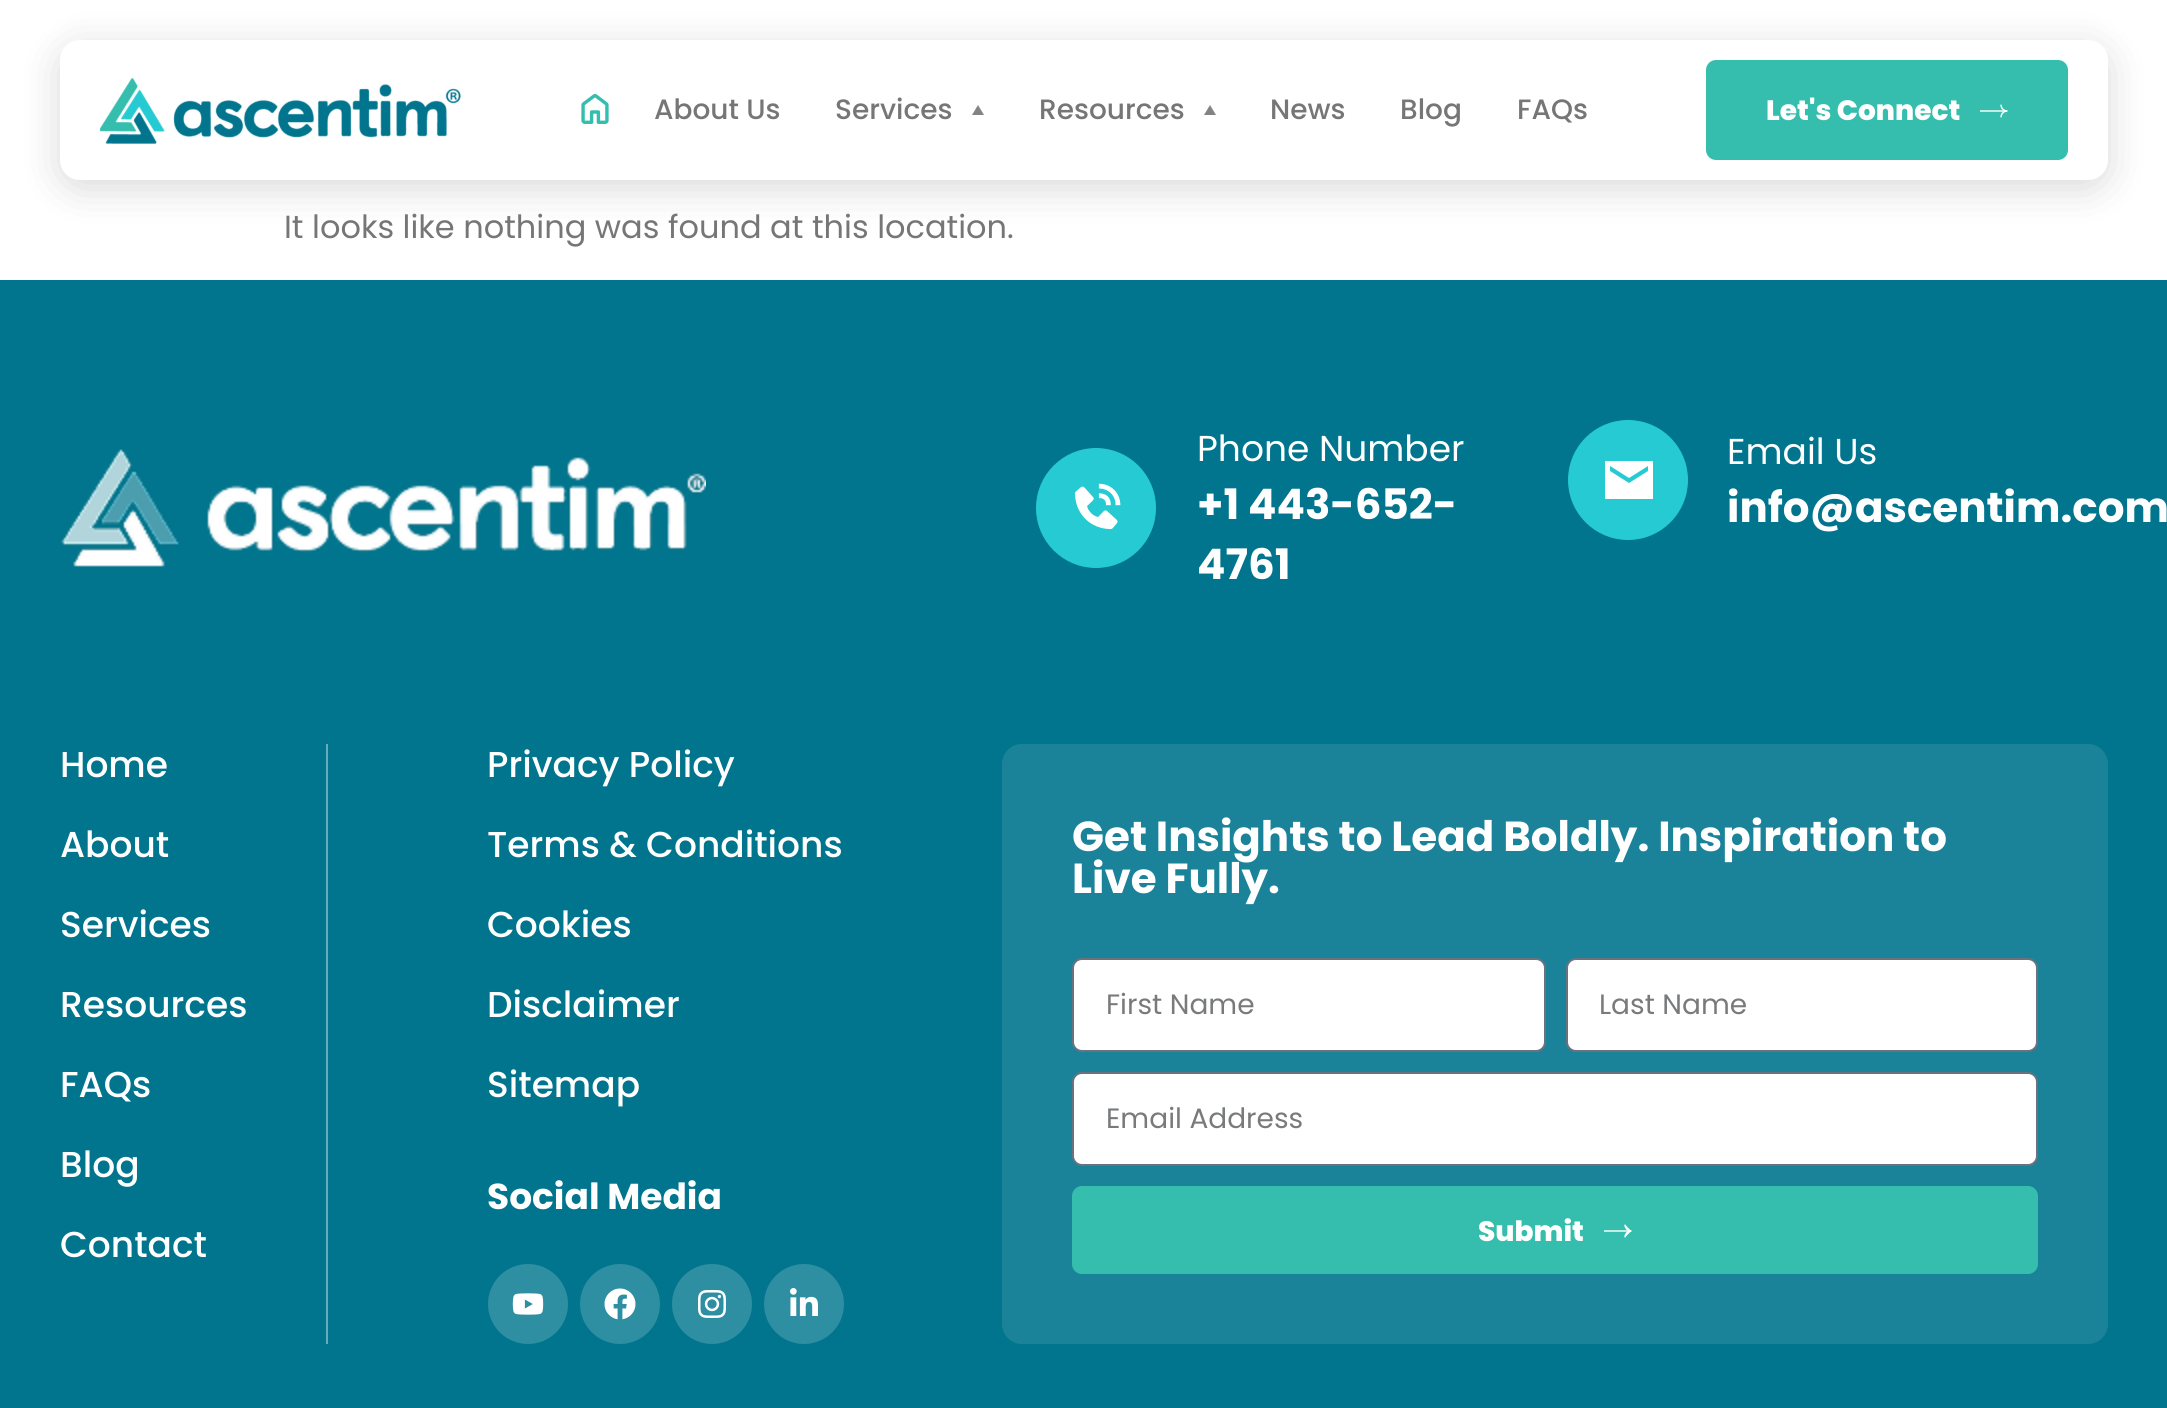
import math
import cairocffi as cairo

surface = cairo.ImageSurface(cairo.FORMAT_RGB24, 2167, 1408)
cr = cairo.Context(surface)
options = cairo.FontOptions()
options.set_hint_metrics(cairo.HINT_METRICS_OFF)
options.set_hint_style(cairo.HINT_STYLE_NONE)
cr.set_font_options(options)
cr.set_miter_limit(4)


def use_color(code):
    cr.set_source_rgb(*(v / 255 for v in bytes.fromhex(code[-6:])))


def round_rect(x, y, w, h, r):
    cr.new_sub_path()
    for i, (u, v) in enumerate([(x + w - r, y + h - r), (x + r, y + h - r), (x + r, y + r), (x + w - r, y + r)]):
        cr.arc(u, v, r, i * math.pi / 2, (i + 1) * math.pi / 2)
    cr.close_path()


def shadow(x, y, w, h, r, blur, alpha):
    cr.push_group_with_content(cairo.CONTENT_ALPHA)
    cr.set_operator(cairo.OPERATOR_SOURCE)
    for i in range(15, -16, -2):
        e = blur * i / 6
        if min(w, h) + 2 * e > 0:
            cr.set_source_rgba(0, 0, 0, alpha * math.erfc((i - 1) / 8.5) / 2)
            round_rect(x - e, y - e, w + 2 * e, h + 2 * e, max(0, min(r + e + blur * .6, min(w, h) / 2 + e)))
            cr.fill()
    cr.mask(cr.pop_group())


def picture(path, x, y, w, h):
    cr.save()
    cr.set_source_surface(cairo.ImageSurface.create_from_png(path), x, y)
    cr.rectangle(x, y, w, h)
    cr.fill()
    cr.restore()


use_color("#ffffff")
cr.paint()
use_color("#000000")
shadow(60, 48, 2048, 140, 20, 20, 0.15)
use_color("#ffffff")
round_rect(60, 40, 2048, 140, 20)
cr.fill()
picture("img1.png", 100, 78, 362, 66)
picture("img2.png", 581, 94, 28, 30)
cr.select_font_face("Poppins Medium")
cr.set_font_size(28)
use_color("#767676")
cr.move_to(654, 119)
cr.show_text("About Us")
cr.move_to(835, 119)
cr.show_text("Services")
use_color("#838383")
cr.new_path()
cr.move_to(978, 105)
cr.line_to(984, 115)
cr.line_to(972, 115)
cr.close_path()
cr.fill()
use_color("#767676")
cr.move_to(1039, 119)
cr.show_text("Resources")
use_color("#838383")
cr.new_path()
cr.move_to(1210, 105)
cr.line_to(1216, 115)
cr.line_to(1204, 115)
cr.close_path()
cr.fill()
use_color("#767676")
cr.move_to(1270, 119)
cr.show_text("News")
cr.move_to(1400, 119)
cr.show_text("Blog")
cr.move_to(1517, 119)
cr.show_text("FAQs")
use_color("#35bead")
round_rect(1706, 60, 362, 100, 10)
cr.fill()
cr.select_font_face("Poppins ExtraBold")
use_color("#ffffff")
cr.move_to(1766, 120)
cr.show_text("Let's Connect")
picture("img3.png", 1980, 104, 28, 14)
cr.select_font_face("Poppins")
cr.set_font_size(32)
use_color("#767676")
cr.move_to(284, 238)
cr.show_text("It looks like nothing was found at this location.")
use_color("#00758d")
cr.rectangle(0, 280, 2167, 1128)
cr.fill()
picture("img4.png", 61, 449, 645, 118)
use_color("#25cad2")
cr.arc(1096, 508, 60, 0, 2 * math.pi)
cr.fill()
picture("img5.png", 1075, 483, 46, 47)
cr.set_font_size(36)
use_color("#ffffff")
cr.move_to(1197, 461)
cr.show_text("Phone Number")
cr.select_font_face("Poppins", cairo.FONT_SLANT_NORMAL, cairo.FONT_WEIGHT_BOLD)
cr.set_font_size(42)
cr.move_to(1197, 519)
cr.show_text("+1 443-652-")
cr.move_to(1197, 579)
cr.show_text("4761")
use_color("#25cad2")
cr.new_path()
cr.arc(1628, 480, 60, 0, 2 * math.pi)
cr.fill()
use_color("#ffffff")
cr.new_path()
cr.move_to(1653, 461)
cr.line_to(1605, 461)
cr.line_to(1605, 499)
cr.line_to(1653, 499)
cr.close_path()
cr.move_to(1648, 471)
cr.line_to(1629, 483)
cr.line_to(1610, 471)
cr.line_to(1610, 466)
cr.line_to(1629, 478)
cr.line_to(1648, 466)
cr.close_path()
cr.fill()
cr.select_font_face("Poppins")
cr.set_font_size(36)
cr.move_to(1727, 464)
cr.show_text("Email Us")
cr.select_font_face("Poppins", cairo.FONT_SLANT_NORMAL, cairo.FONT_WEIGHT_BOLD)
cr.set_font_size(42)
cr.move_to(1727, 522)
cr.show_text("info@ascentim.com")
use_color("#66acbb")
cr.rectangle(326, 744, 2, 600)
cr.fill()
cr.select_font_face("Poppins Medium")
cr.set_font_size(36)
use_color("#ffffff")
cr.move_to(60, 777)
cr.show_text("Home")
cr.move_to(60, 857)
cr.show_text("About")
cr.move_to(60, 937)
cr.show_text("Services")
cr.move_to(60, 1017)
cr.show_text("Resources")
cr.move_to(60, 1097)
cr.show_text("FAQs")
cr.move_to(60, 1177)
cr.show_text("Blog")
cr.move_to(60, 1257)
cr.show_text("Contact")
cr.move_to(487, 777)
cr.show_text("Privacy Policy")
cr.move_to(487, 857)
cr.show_text("Terms & Conditions")
cr.move_to(487, 937)
cr.show_text("Cookies")
cr.move_to(487, 1017)
cr.show_text("Disclaimer")
cr.move_to(487, 1097)
cr.show_text("Sitemap")
cr.select_font_face("Poppins", cairo.FONT_SLANT_NORMAL, cairo.FONT_WEIGHT_BOLD)
cr.move_to(487, 1209)
cr.show_text("Social Media")
use_color("#2e8ea2")
cr.new_path()
cr.arc(528, 1304, 40, 0, 2 * math.pi)
cr.fill()
picture("img6.png", 512, 1293, 32, 22)
cr.arc(620, 1304, 40, 0, 2 * math.pi)
cr.fill()
picture("img7.png", 604, 1288, 32, 32)
cr.arc(712, 1304, 40, 0, 2 * math.pi)
cr.fill()
picture("img8.png", 698, 1290, 28, 28)
cr.arc(804, 1304, 40, 0, 2 * math.pi)
cr.fill()
picture("img9.png", 790, 1288, 28, 28)
use_color("#1a8399")
round_rect(1002, 744, 1106, 600, 20)
cr.fill()
cr.set_font_size(42)
use_color("#ffffff")
cr.move_to(1072, 851)
cr.show_text("Get Insights to Lead Boldly. Inspiration to")
cr.move_to(1072, 893)
cr.show_text("Live Fully.")
round_rect(1073, 959, 472, 92, 9)
cr.fill_preserve()
use_color("#69727d")
cr.stroke()
cr.select_font_face("Poppins")
cr.set_font_size(28)
use_color("#797a7c")
cr.move_to(1106, 1014)
cr.show_text("First Name")
use_color("#ffffff")
round_rect(1567, 959, 470, 92, 9)
cr.fill_preserve()
use_color("#69727d")
cr.stroke()
use_color("#797a7c")
cr.move_to(1599, 1014)
cr.show_text("Last Name")
use_color("#ffffff")
round_rect(1073, 1073, 964, 92, 9)
cr.fill_preserve()
use_color("#69727d")
cr.stroke()
use_color("#797a7c")
cr.move_to(1106, 1128)
cr.show_text("Email Address")
use_color("#35bead")
round_rect(1072, 1186, 966, 88, 10)
cr.fill()
cr.select_font_face("Poppins ExtraBold")
use_color("#ffffff")
cr.move_to(1478, 1241)
cr.show_text("Submit")
picture("img10.png", 1604, 1224, 28, 14)
surface.write_to_png("result.png")
